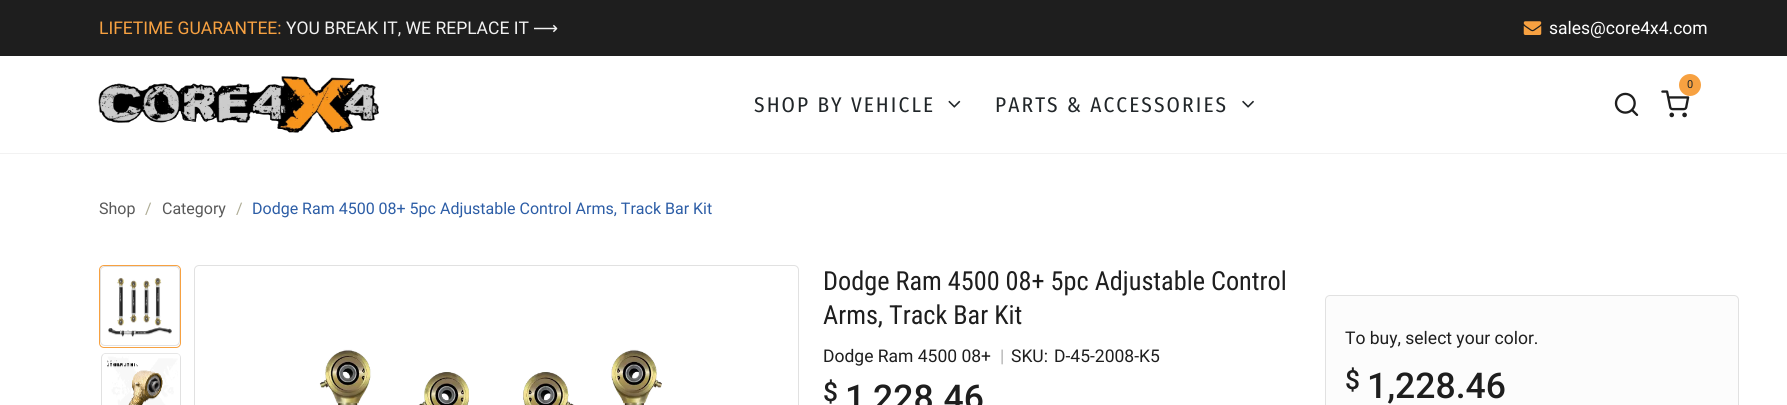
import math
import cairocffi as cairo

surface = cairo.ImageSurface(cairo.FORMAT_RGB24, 1787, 405)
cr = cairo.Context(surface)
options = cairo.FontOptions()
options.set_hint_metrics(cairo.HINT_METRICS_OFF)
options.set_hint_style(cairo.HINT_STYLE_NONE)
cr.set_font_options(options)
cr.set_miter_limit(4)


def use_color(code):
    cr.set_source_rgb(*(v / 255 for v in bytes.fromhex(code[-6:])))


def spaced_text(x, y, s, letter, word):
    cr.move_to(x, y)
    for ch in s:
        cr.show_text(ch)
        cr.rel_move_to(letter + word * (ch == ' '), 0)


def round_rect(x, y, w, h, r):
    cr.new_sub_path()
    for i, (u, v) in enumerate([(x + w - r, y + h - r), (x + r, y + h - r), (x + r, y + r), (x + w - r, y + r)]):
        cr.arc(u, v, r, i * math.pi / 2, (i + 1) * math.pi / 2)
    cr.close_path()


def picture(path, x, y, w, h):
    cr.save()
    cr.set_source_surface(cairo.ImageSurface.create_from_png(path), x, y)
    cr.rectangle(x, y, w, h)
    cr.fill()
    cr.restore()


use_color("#ffffff")
cr.paint()
use_color("#1e1e1e")
cr.rectangle(0, 0, 1787, 56)
cr.fill()
cr.select_font_face("Roboto")
cr.set_font_size(17.5)
use_color("#f7a141")
cr.move_to(99, 34)
cr.show_text("LIFETIME GUARANTEE:")
use_color("#f2f2f2")
cr.move_to(286, 34)
cr.show_text("YOU BREAK IT, WE REPLACE IT")
cr.select_font_face("DejaVu Sans")
cr.move_to(533, 34)
cr.show_text("⟶")
picture("img1.png", 1523, 21, 19, 14)
cr.select_font_face("Roboto")
use_color("#ffffff")
cr.move_to(1549, 34)
cr.show_text("sales@core4x4.com")
use_color("#f2f2f2")
cr.rectangle(0, 153, 1787, 1)
cr.fill()
picture("img2.png", 98, 76, 281, 57)
picture("img3.png", 1661, 90, 29, 28)
use_color("#f7a141")
cr.arc(1690, 85, 11, 0, 2 * math.pi)
cr.fill()
cr.set_font_size(11)
use_color("#212629")
cr.move_to(1687, 88)
cr.show_text("0")
picture("img4.png", 1614, 92, 25, 24)
cr.select_font_face("Fira Sans Condensed")
cr.set_font_size(21.25)
spaced_text(754, 112, "SHOP BY VEHICLE", 2.1, 0)
picture("img5.png", 948, 100, 13, 8)
spaced_text(995, 112, "PARTS & ACCESSORIES", 2.1, 0)
picture("img6.png", 1242, 100, 12, 8)
cr.select_font_face("Roboto")
cr.set_font_size(16)
use_color("#595959")
cr.move_to(99, 214)
cr.show_text("Shop")
use_color("#aeac95")
cr.move_to(145, 214)
cr.show_text("/")
use_color("#595959")
cr.move_to(162, 214)
cr.show_text("Category")
use_color("#aeac95")
cr.move_to(236, 214)
cr.show_text("/")
use_color("#2c5da6")
cr.move_to(252, 214)
cr.show_text("Dodge Ram 4500 08+ 5pc Adjustable Control Arms, Track Bar Kit")
round_rect(99.5, 265.5, 81, 82, 4.5)
use_color("#f7a141")
cr.set_line_width(1)
cr.stroke()
round_rect(100.5, 266.5, 79, 79, 4.5)
use_color("#e1e1e1")
cr.stroke()
picture("img7.png", 108, 277, 64, 60)
round_rect(101.5, 353.5, 79, 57, 4.5)
cr.stroke()
picture("img8.png", 103, 353, 77, 52)
round_rect(194.5, 265.5, 604, 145, 4.5)
cr.stroke()
picture("img9.png", 319, 349, 343, 56)
cr.select_font_face("Roboto Condensed")
cr.set_font_size(26.25)
use_color("#1e1e1e")
cr.move_to(823, 290)
cr.show_text("Dodge Ram 4500 08+ 5pc Adjustable Control")
cr.move_to(823, 324)
cr.show_text("Arms, Track Bar Kit")
cr.select_font_face("Roboto")
cr.set_font_size(17.5)
cr.move_to(823, 362)
cr.show_text("Dodge Ram 4500 08+")
use_color("#b0b0b0")
cr.move_to(1000, 362)
cr.show_text("|")
use_color("#1e1e1e")
cr.move_to(1011, 362)
cr.show_text("SKU:")
cr.move_to(1054, 362)
cr.show_text("D-45-2008-K5")
cr.select_font_face("Roboto Medium")
cr.set_font_size(26.25)
cr.move_to(823, 401)
cr.show_text("$")
cr.set_font_size(35.5)
cr.move_to(845, 410)
cr.show_text("1,228.46")
use_color("#fcfcfc")
round_rect(1325.5, 295.5, 413, 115, 4.5)
cr.fill_preserve()
use_color("#e1e1e1")
cr.stroke()
cr.select_font_face("Roboto")
cr.set_font_size(17.5)
use_color("#1e1e1e")
cr.move_to(1345, 344)
cr.show_text("To buy, select your color.")
cr.select_font_face("Roboto Medium")
cr.set_font_size(26.25)
cr.move_to(1345, 389)
cr.show_text("$")
cr.set_font_size(35.5)
cr.move_to(1367, 398)
cr.show_text("1,228.46")
surface.write_to_png("result.png")
